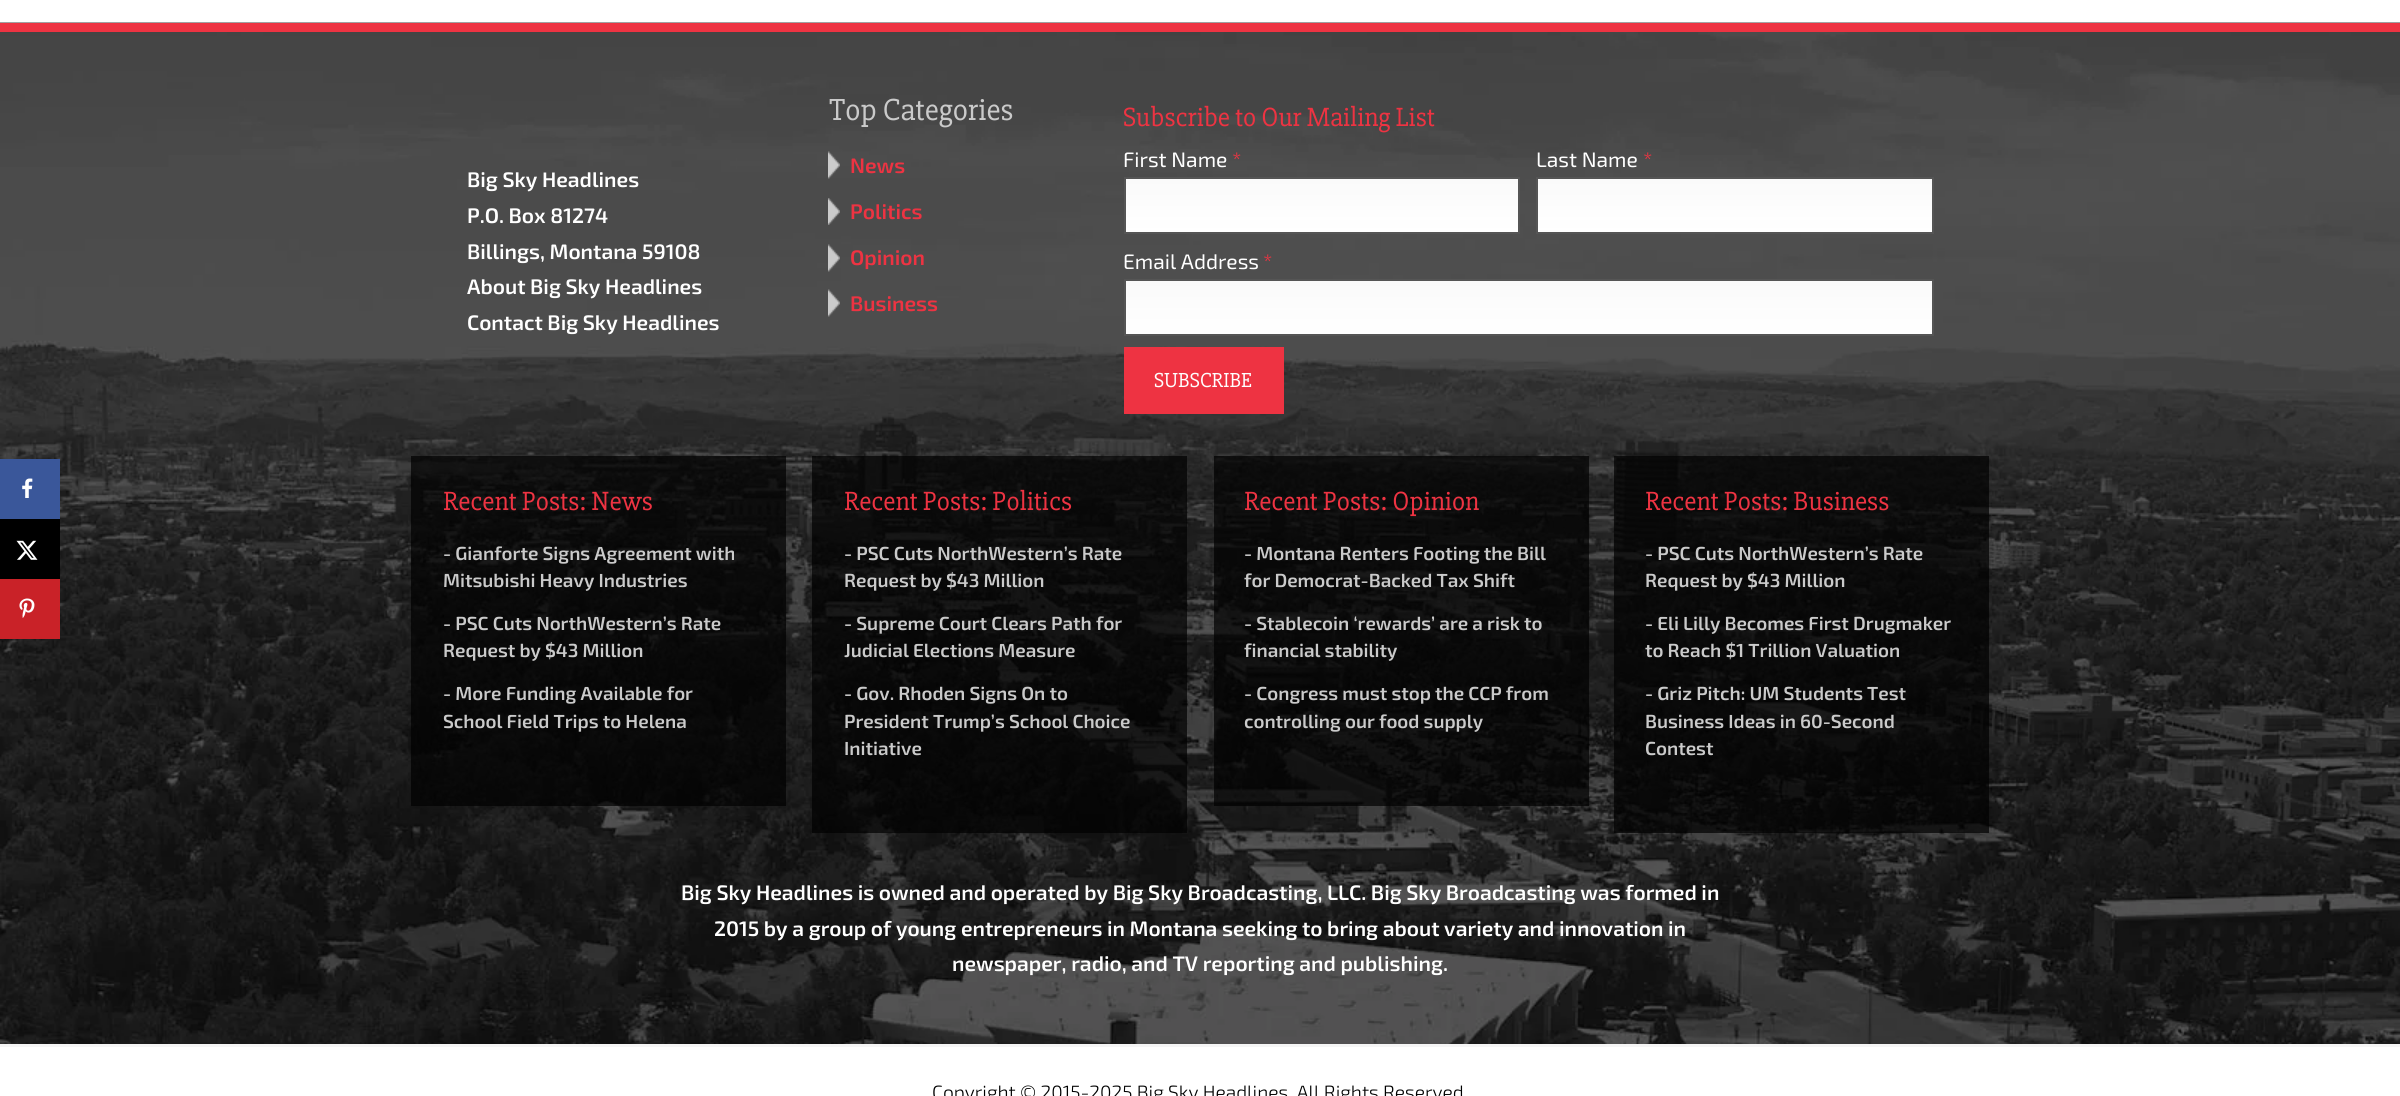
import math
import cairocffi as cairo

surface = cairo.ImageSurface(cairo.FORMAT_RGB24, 2400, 1096)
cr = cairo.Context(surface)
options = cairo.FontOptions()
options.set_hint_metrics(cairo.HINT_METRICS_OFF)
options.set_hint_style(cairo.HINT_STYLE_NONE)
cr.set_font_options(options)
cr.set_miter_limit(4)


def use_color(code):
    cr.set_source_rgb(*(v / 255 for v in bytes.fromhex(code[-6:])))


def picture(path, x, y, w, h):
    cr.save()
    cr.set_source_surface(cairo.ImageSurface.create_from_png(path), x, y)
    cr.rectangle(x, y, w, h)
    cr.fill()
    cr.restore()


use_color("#ffffff")
cr.paint()
picture("img4.png", 0, 22, 2400, 1022)
use_color("#3a579a")
cr.rectangle(0, 459, 60, 60)
cr.fill()
picture("img1.png", 22, 478, 11, 20)
use_color("#000000")
cr.rectangle(0, 519, 60, 60)
cr.fill()
picture("img2.png", 16, 540, 22, 20)
use_color("#c92228")
cr.rectangle(0, 579, 60, 60)
cr.fill()
picture("img3.png", 19, 598, 16, 20)
use_color("#ee3342")
cr.rectangle(0, 23, 2400, 9)
cr.fill()
use_color("#f5f5f5")
cr.rectangle(0, 1044, 2400, 3)
cr.fill()
cr.select_font_face("Exo 2 SemiBold")
cr.set_font_size(21)
use_color("#ffffff")
cr.move_to(467, 187)
cr.show_text("Big Sky Headlines")
cr.move_to(467, 223)
cr.show_text("P.O. Box 81274")
cr.move_to(467, 259)
cr.show_text("Billings, Montana 59108")
cr.move_to(467, 294)
cr.show_text("About Big Sky Headlines")
cr.move_to(467, 330)
cr.show_text("Contact Big Sky Headlines")
cr.select_font_face("Slabo 27px")
cr.set_font_size(31.5)
use_color("#cacaca")
cr.move_to(829, 120)
cr.show_text("Top Categories")
picture("img5.png", 828, 151, 12, 28)
cr.select_font_face("Exo 2 SemiBold")
cr.set_font_size(21)
use_color("#ee3342")
cr.move_to(850, 173)
cr.show_text("News")
picture("img6.png", 828, 198, 12, 27)
cr.move_to(850, 219)
cr.show_text("Politics")
picture("img7.png", 828, 244, 12, 28)
cr.move_to(850, 265)
cr.show_text("Opinion")
picture("img8.png", 828, 289, 12, 28)
cr.move_to(850, 311)
cr.show_text("Business")
cr.save()
cr.rectangle(1124, 95, 810, 319)
cr.clip()
cr.select_font_face("Slabo 27px")
cr.set_font_size(27.25)
cr.move_to(1123, 126)
cr.show_text("Subscribe to Our Mailing List")
cr.restore()
cr.select_font_face("Exo 2")
use_color("#ffffff")
cr.move_to(1123, 167)
cr.show_text("First Name")
use_color("#ee3342")
cr.move_to(1232, 167)
cr.show_text("*")
gradient = cairo.LinearGradient(1322, 178, 1322, 233)
gradient.add_color_stop_rgba(0, 0.98, 0.98, 0.98, 1)
gradient.add_color_stop_rgba(1, 1, 1, 1, 1)
cr.set_source(gradient)
cr.rectangle(1126, 179, 392, 53)
cr.fill()
cr.rectangle(1125, 178, 394, 55)
use_color("#555555")
cr.stroke()
use_color("#ffffff")
cr.move_to(1536, 167)
cr.show_text("Last Name")
use_color("#ee3342")
cr.move_to(1643, 167)
cr.show_text("*")
gradient = cairo.LinearGradient(1735, 178, 1735, 233)
gradient.add_color_stop_rgba(0, 0.98, 0.98, 0.98, 1)
gradient.add_color_stop_rgba(1, 1, 1, 1, 1)
cr.set_source(gradient)
cr.rectangle(1538, 179, 394, 53)
cr.fill()
cr.rectangle(1537, 178, 396, 55)
use_color("#555555")
cr.stroke()
use_color("#ffffff")
cr.move_to(1123, 269)
cr.show_text("Email Address")
use_color("#ee3342")
cr.move_to(1263, 269)
cr.show_text("*")
gradient = cairo.LinearGradient(1529, 280, 1529, 335)
gradient.add_color_stop_rgba(0, 0.98, 0.98, 0.98, 1)
gradient.add_color_stop_rgba(1, 1, 1, 1, 1)
cr.set_source(gradient)
cr.rectangle(1126, 281, 806, 53)
cr.fill()
cr.rectangle(1125, 280, 808, 55)
use_color("#555555")
cr.stroke()
use_color("#ee3342")
cr.rectangle(1124, 347, 160, 67)
cr.fill()
cr.select_font_face("Slabo 27px")
use_color("#ffffff")
cr.move_to(1154, 387)
cr.show_text("SUBSCRIBE")
cr.set_source_rgba(0, 0, 0, 0.7)
cr.rectangle(411, 456, 375, 350)
cr.fill()
cr.set_font_size(27.25)
use_color("#ee3342")
cr.move_to(443, 510)
cr.show_text("Recent Posts: News")
cr.select_font_face("Exo 2 SemiBold")
cr.set_font_size(18.9)
use_color("#cacaca")
cr.move_to(443, 560)
cr.show_text("- Gianforte Signs Agreement with")
cr.move_to(443, 587)
cr.show_text("Mitsubishi Heavy Industries")
cr.move_to(443, 630)
cr.show_text("- PSC Cuts NorthWestern’s Rate")
cr.move_to(443, 657)
cr.show_text("Request by $43 Million")
cr.move_to(443, 700)
cr.show_text("- More Funding Available for")
cr.move_to(443, 728)
cr.show_text("School Field Trips to Helena")
cr.set_source_rgba(0, 0, 0, 0.7)
cr.rectangle(812, 456, 375, 377)
cr.fill()
cr.select_font_face("Slabo 27px")
cr.set_font_size(27.25)
use_color("#ee3342")
cr.move_to(844, 510)
cr.show_text("Recent Posts: Politics")
cr.select_font_face("Exo 2 SemiBold")
cr.set_font_size(18.9)
use_color("#cacaca")
cr.move_to(844, 560)
cr.show_text("- PSC Cuts NorthWestern’s Rate")
cr.move_to(844, 587)
cr.show_text("Request by $43 Million")
cr.move_to(844, 630)
cr.show_text("- Supreme Court Clears Path for")
cr.move_to(844, 657)
cr.show_text("Judicial Elections Measure")
cr.move_to(844, 700)
cr.show_text("- Gov. Rhoden Signs On to")
cr.move_to(844, 728)
cr.show_text("President Trump’s School Choice")
cr.move_to(844, 755)
cr.show_text("Initiative")
cr.set_source_rgba(0, 0, 0, 0.7)
cr.rectangle(1214, 456, 375, 350)
cr.fill()
cr.select_font_face("Slabo 27px")
cr.set_font_size(27.25)
use_color("#ee3342")
cr.move_to(1244, 510)
cr.show_text("Recent Posts: Opinion")
cr.select_font_face("Exo 2 SemiBold")
cr.set_font_size(18.9)
use_color("#cacaca")
cr.move_to(1244, 560)
cr.show_text("- Montana Renters Footing the Bill")
cr.move_to(1244, 587)
cr.show_text("for Democrat-Backed Tax Shift")
cr.move_to(1244, 630)
cr.show_text("- Stablecoin ‘rewards’ are a risk to")
cr.move_to(1244, 657)
cr.show_text("financial stability")
cr.move_to(1244, 700)
cr.show_text("- Congress must stop the CCP from")
cr.move_to(1244, 728)
cr.show_text("controlling our food supply")
cr.set_source_rgba(0, 0, 0, 0.7)
cr.rectangle(1614, 456, 375, 377)
cr.fill()
cr.select_font_face("Slabo 27px")
cr.set_font_size(27.25)
use_color("#ee3342")
cr.move_to(1645, 510)
cr.show_text("Recent Posts: Business")
cr.select_font_face("Exo 2 SemiBold")
cr.set_font_size(18.9)
use_color("#cacaca")
cr.move_to(1645, 560)
cr.show_text("- PSC Cuts NorthWestern’s Rate")
cr.move_to(1645, 587)
cr.show_text("Request by $43 Million")
cr.move_to(1645, 630)
cr.show_text("- Eli Lilly Becomes First Drugmaker")
cr.move_to(1645, 657)
cr.show_text("to Reach $1 Trillion Valuation")
cr.move_to(1645, 700)
cr.show_text("- Griz Pitch: UM Students Test")
cr.move_to(1645, 728)
cr.show_text("Business Ideas in 60-Second")
cr.move_to(1645, 755)
cr.show_text("Contest")
cr.set_font_size(21)
use_color("#ffffff")
cr.move_to(681, 900)
cr.show_text("Big Sky Headlines is owned and operated by Big Sky Broadcasting, LLC. Big Sky Broadcasting was formed in")
cr.move_to(714, 936)
cr.show_text("2015 by a group of young entrepreneurs in Montana seeking to bring about variety and innovation in")
cr.move_to(952, 971)
cr.show_text("newspaper, radio, and TV reporting and publishing.")
cr.select_font_face("Exo 2 Light")
cr.set_font_size(19.2)
use_color("#000000")
cr.move_to(932, 1099)
cr.show_text("Copyright © 2015-2025 Big Sky Headlines, All Rights Reserved")
surface.write_to_png("result.png")
